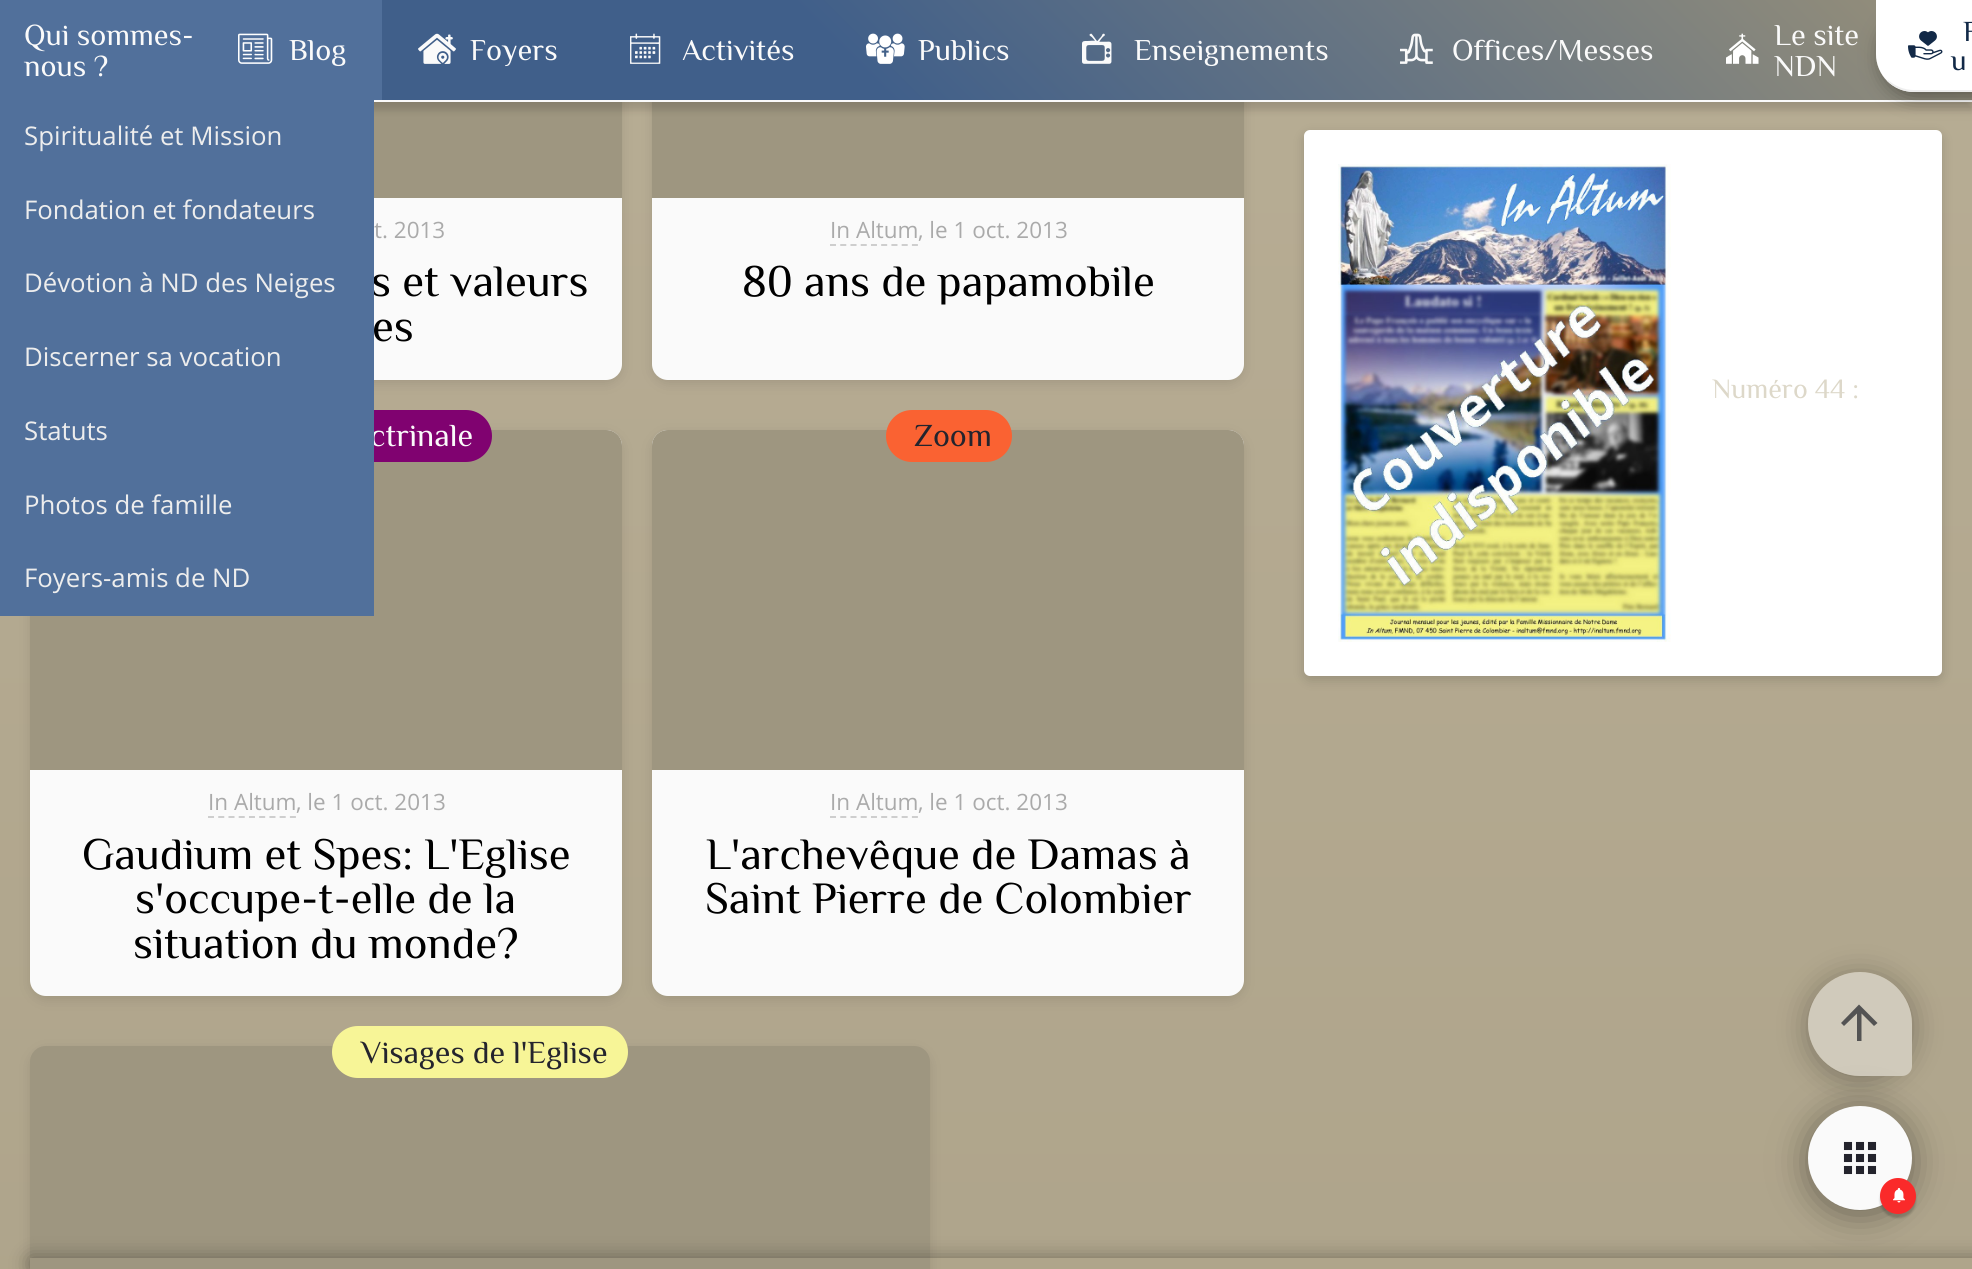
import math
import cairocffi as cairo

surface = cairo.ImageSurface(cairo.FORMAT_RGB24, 1972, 1269)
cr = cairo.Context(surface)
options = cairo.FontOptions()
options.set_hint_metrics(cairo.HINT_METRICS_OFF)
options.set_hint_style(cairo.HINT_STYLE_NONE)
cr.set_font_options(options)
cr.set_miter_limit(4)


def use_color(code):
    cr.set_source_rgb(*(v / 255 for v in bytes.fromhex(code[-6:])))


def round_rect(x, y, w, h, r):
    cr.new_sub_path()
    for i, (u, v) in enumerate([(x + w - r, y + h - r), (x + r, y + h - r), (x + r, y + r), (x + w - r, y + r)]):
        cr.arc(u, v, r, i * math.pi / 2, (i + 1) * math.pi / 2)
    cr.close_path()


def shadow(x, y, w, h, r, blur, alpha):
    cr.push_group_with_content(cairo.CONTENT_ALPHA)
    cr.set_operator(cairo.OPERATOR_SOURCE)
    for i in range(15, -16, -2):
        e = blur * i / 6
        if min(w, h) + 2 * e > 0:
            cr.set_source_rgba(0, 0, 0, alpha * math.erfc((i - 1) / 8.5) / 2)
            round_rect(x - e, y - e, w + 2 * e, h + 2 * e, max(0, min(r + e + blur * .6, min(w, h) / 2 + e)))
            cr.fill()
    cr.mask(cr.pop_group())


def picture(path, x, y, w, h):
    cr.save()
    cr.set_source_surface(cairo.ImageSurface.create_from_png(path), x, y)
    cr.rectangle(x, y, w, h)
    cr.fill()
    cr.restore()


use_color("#ffffff")
cr.paint()
gradient = cairo.LinearGradient(986, 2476, 986, -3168)
gradient.add_color_stop_rgba(0, 0.655, 0.616, 0.514, 1)
gradient.add_color_stop_rgba(1, 0.8, 0.757, 0.667, 1)
cr.set_source(gradient)
cr.rectangle(0, 102, 1972, 1167)
cr.fill()
use_color("#000000")
shadow(30, -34, 592, 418, 16, 6, 0.1)
use_color("#fafafa")
round_rect(30, -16, 592, 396, 16)
cr.fill()
use_color("#9e9680")
cr.rectangle(374, 102, 248, 96)
cr.fill()
use_color("#000000")
shadow(652, -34, 592, 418, 16, 6, 0.1)
use_color("#fafafa")
round_rect(652, -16, 592, 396, 16)
cr.fill()
use_color("#9e9680")
cr.rectangle(652, 102, 592, 96)
cr.fill()
use_color("#000000")
shadow(0, 8, 1972, 102, 0, 4, 0.15)
gradient = cairo.LinearGradient(468, 568, 1504, -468)
gradient.add_color_stop_rgba(0.43, 0.251, 0.373, 0.541, 1)
gradient.add_color_stop_rgba(1, 0.596, 0.565, 0.475, 1)
cr.set_source(gradient)
cr.rectangle(382, 0, 1590, 100)
cr.fill()
use_color("#fafafa")
cr.rectangle(374, 100, 1598, 2)
cr.fill()
use_color("#51709b")
cr.rectangle(0, 0, 382, 100)
cr.fill()
cr.select_font_face("Philosopher")
cr.set_font_size(30.25)
use_color("#fafafa")
cr.move_to(24, 45)
cr.show_text("Qui sommes-")
cr.move_to(24, 76)
cr.show_text("nous ?")
cr.set_font_size(44.75)
use_color("#000000")
cr.move_to(371, 296)
cr.show_text("s et valeurs")
use_color("#000000")
shadow(30, 434, 592, 566, 16, 6, 0.1)
use_color("#fafafa")
round_rect(30, 430, 592, 566, 16)
cr.fill()
use_color("#9e9680")
cr.new_path()
cr.move_to(46, 430)
cr.line_to(606, 430)
cr.curve_to(615, 430, 622, 437, 622, 446)
cr.line_to(622, 770)
cr.line_to(30, 770)
cr.line_to(30, 446)
cr.curve_to(30, 437, 37, 430, 46, 430)
cr.close_path()
cr.fill()
use_color("#800270")
round_rect(160, 410, 332, 52, 26)
cr.fill()
cr.set_font_size(32)
use_color("#fafafa")
cr.move_to(370, 446)
cr.show_text("ctrinale")
use_color("#51709b")
cr.rectangle(0, 100, 374, 516)
cr.fill()
cr.select_font_face("Open Sans")
cr.set_font_size(25.75)
use_color("#ededed")
cr.move_to(24, 145)
cr.show_text("Spiritualité et Mission")
cr.move_to(24, 219)
cr.show_text("Fondation et fondateurs")
cr.move_to(24, 292)
cr.show_text("Dévotion à ND des Neiges")
cr.move_to(24, 366)
cr.show_text("Discerner sa vocation")
cr.move_to(24, 440)
cr.show_text("Statuts")
cr.move_to(24, 514)
cr.show_text("Photos de famille")
cr.move_to(24, 587)
cr.show_text("Foyers-amis de ND")
picture("img1.png", 1400, 33, 33, 31)
cr.select_font_face("Philosopher")
cr.set_font_size(30.25)
use_color("#fafafa")
cr.move_to(1452, 60)
cr.show_text("Offices/Messes")
picture("img2.png", 1726, 33, 33, 31)
cr.move_to(1774, 45)
cr.show_text("Le site")
cr.move_to(1774, 76)
cr.show_text("NDN")
use_color("#000000")
shadow(1882, 16, 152, 80, 32, 10, 0.4)
use_color("#ffffff")
cr.new_path()
cr.move_to(1876, 0)
cr.line_to(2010, 0)
cr.line_to(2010, 64)
cr.curve_to(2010, 79.5, 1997.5, 92, 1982, 92)
cr.line_to(1914, 92)
cr.curve_to(1893, 92, 1876, 75, 1876, 54)
cr.close_path()
cr.fill()
use_color("#eeeeee")
cr.new_path()
cr.move_to(1914, 92)
cr.line_to(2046, 92)
cr.curve_to(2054, 92, 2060, 89, 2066, 84)
cr.line_to(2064, 82)
cr.curve_to(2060, 87, 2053, 90, 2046, 90)
cr.line_to(1914, 90)
cr.curve_to(1904, 90, 1895, 86, 1888, 80)
cr.line_to(1887, 81)
cr.curve_to(1894, 88, 1904, 92, 1914, 92)
cr.close_path()
cr.fill()
cr.set_source_rgba(1, 1, 1, 0.38)
cr.new_path()
cr.move_to(1878, 2)
cr.line_to(1876, 0)
cr.line_to(1876, 54)
cr.curve_to(1876, 64, 1880, 74, 1887, 81)
cr.line_to(1888, 80)
cr.curve_to(1882, 73, 1878, 64, 1878, 54)
cr.close_path()
cr.fill()
picture("img3.png", 1908, 31, 35, 29)
cr.set_font_size(29)
use_color("#122947")
cr.move_to(1963, 41)
cr.show_text("F")
cr.move_to(1951, 70)
cr.show_text("u")
picture("img4.png", 238, 33, 35, 31)
cr.set_font_size(30.25)
use_color("#fafafa")
cr.move_to(289, 60)
cr.show_text("Blog")
picture("img5.png", 418, 33, 38, 31)
cr.move_to(470, 60)
cr.show_text("Foyers")
picture("img6.png", 630, 33, 31, 31)
cr.move_to(682, 60)
cr.show_text("Activités")
picture("img7.png", 866, 33, 39, 31)
cr.move_to(918, 60)
cr.show_text("Publics")
picture("img8.png", 1082, 33, 30, 31)
cr.move_to(1134, 60)
cr.show_text("Enseignements")
cr.select_font_face("Open Sans")
cr.set_font_size(22.5)
use_color("#aaaaaa")
cr.move_to(374, 238)
cr.show_text("t. 2013")
cr.select_font_face("Philosopher")
cr.set_font_size(44.75)
use_color("#000000")
cr.move_to(372, 341)
cr.show_text("es")
cr.select_font_face("Open Sans")
cr.set_font_size(22.5)
use_color("#aaaaaa")
cr.move_to(830, 238)
cr.show_text("In Altum")
cr.new_path()
cr.move_to(830, 245)
cr.line_to(918, 245)
use_color("#eeeeee")
cr.set_dash([6, 4.24])
cr.stroke()
cr.new_path()
cr.move_to(830, 245)
cr.line_to(918, 245)
cr.set_source_rgba(0, 0, 0, 0.05)
cr.stroke()
cr.new_path()
cr.move_to(830, 245)
cr.line_to(918, 245)
cr.stroke()
cr.new_path()
cr.move_to(830, 245)
cr.line_to(918, 245)
cr.stroke()
use_color("#aaaaaa")
cr.move_to(918, 238)
cr.show_text(", le 1 oct. 2013")
cr.select_font_face("Philosopher")
cr.set_font_size(44.75)
use_color("#000000")
cr.move_to(742, 296)
cr.show_text("80 ans de papamobile")
cr.select_font_face("Open Sans")
cr.set_font_size(22.5)
use_color("#aaaaaa")
cr.move_to(208, 810)
cr.show_text("In Altum")
cr.new_path()
cr.move_to(208, 817)
cr.line_to(296, 817)
use_color("#eeeeee")
cr.stroke()
cr.new_path()
cr.move_to(208, 817)
cr.line_to(296, 817)
cr.set_source_rgba(0, 0, 0, 0.05)
cr.stroke()
cr.new_path()
cr.move_to(208, 817)
cr.line_to(296, 817)
cr.stroke()
cr.new_path()
cr.move_to(208, 817)
cr.line_to(296, 817)
cr.stroke()
use_color("#aaaaaa")
cr.move_to(296, 810)
cr.show_text(", le 1 oct. 2013")
cr.select_font_face("Philosopher")
cr.set_font_size(44.75)
use_color("#000000")
cr.move_to(82, 869)
cr.show_text("Gaudium et Spes: L'Eglise")
cr.move_to(135, 913)
cr.show_text("s'occupe-t-elle de la")
cr.move_to(133, 958)
cr.show_text("situation du monde?")
use_color("#000000")
shadow(652, 434, 592, 566, 16, 6, 0.1)
use_color("#fafafa")
round_rect(652, 430, 592, 566, 16)
cr.fill()
use_color("#9e9680")
cr.new_path()
cr.move_to(668, 430)
cr.line_to(1228, 430)
cr.curve_to(1237, 430, 1244, 437, 1244, 446)
cr.line_to(1244, 770)
cr.line_to(652, 770)
cr.line_to(652, 446)
cr.curve_to(652, 437, 659, 430, 668, 430)
cr.close_path()
cr.fill()
use_color("#fa6232")
round_rect(886, 410, 126, 52, 26)
cr.fill()
cr.set_font_size(32)
use_color("#24242d")
cr.move_to(914, 446)
cr.show_text("Zoom")
cr.select_font_face("Open Sans")
cr.set_font_size(22.5)
use_color("#aaaaaa")
cr.move_to(830, 810)
cr.show_text("In Altum")
cr.new_path()
cr.move_to(830, 817)
cr.line_to(918, 817)
use_color("#eeeeee")
cr.stroke()
cr.new_path()
cr.move_to(830, 817)
cr.line_to(918, 817)
cr.set_source_rgba(0, 0, 0, 0.05)
cr.stroke()
cr.new_path()
cr.move_to(830, 817)
cr.line_to(918, 817)
cr.stroke()
cr.new_path()
cr.move_to(830, 817)
cr.line_to(918, 817)
cr.stroke()
use_color("#aaaaaa")
cr.move_to(918, 810)
cr.show_text(", le 1 oct. 2013")
cr.select_font_face("Philosopher")
cr.set_font_size(44.75)
use_color("#000000")
cr.move_to(706, 869)
cr.show_text("L'archevêque de Damas à")
cr.move_to(705, 913)
cr.show_text("Saint Pierre de Colombier")
use_color("#000000")
shadow(30, 1050, 900, 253, 16, 6, 0.1)
use_color("#9e9680")
cr.new_path()
cr.move_to(46, 1046)
cr.line_to(914, 1046)
cr.curve_to(923, 1046, 930, 1053, 930, 1062)
cr.line_to(930, 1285)
cr.line_to(30, 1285)
cr.line_to(30, 1062)
cr.curve_to(30, 1053, 37, 1046, 46, 1046)
cr.close_path()
cr.fill()
use_color("#f7f597")
round_rect(332, 1026, 296, 52, 26)
cr.fill()
cr.set_font_size(32)
use_color("#24242d")
cr.move_to(361, 1063)
cr.show_text("Visages de l'Eglise")
use_color("#000000")
shadow(1304, 134, 638, 546, 6, 6, 0.15)
use_color("#ffffff")
round_rect(1304, 130, 638, 546, 6)
cr.fill()
picture("img9.png", 1338, 164, 333, 478)
cr.set_font_size(28)
use_color("#ddd8c9")
cr.move_to(1712, 398)
cr.show_text("Numéro 44 :")
cr.save()
cr.set_fill_rule(cairo.FILL_RULE_EVEN_ODD)
cr.new_path()
cr.move_to(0, 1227)
cr.line_to(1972, 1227)
cr.line_to(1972, 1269)
cr.line_to(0, 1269)
cr.close_path()
cr.move_to(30, 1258)
cr.line_to(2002, 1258)
cr.line_to(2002, 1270)
cr.line_to(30, 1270)
cr.close_path()
cr.clip()
use_color("#000000")
shadow(30, 1258, 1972, 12, 0, 10, 0.35)
cr.restore()
cr.save()
cr.set_fill_rule(cairo.FILL_RULE_EVEN_ODD)
cr.new_path()
cr.move_to(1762, 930)
cr.line_to(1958, 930)
cr.line_to(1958, 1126)
cr.line_to(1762, 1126)
cr.close_path()
cr.move_to(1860, 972)
cr.curve_to(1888.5, 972, 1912, 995.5, 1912, 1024)
cr.line_to(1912, 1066)
cr.curve_to(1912, 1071.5, 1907.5, 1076, 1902, 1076)
cr.line_to(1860, 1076)
cr.curve_to(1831.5, 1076, 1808, 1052.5, 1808, 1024)
cr.curve_to(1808, 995.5, 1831.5, 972, 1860, 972)
cr.close_path()
cr.clip()
use_color("#000000")
shadow(1808, 976, 104, 104, 52, 15, 0.3)
cr.restore()
cr.set_source_rgba(1, 1, 1, 0.4)
cr.new_path()
cr.move_to(1860, 972)
cr.curve_to(1888.5, 972, 1912, 995.5, 1912, 1024)
cr.line_to(1912, 1066)
cr.curve_to(1912, 1071.5, 1907.5, 1076, 1902, 1076)
cr.line_to(1860, 1076)
cr.curve_to(1831.5, 1076, 1808, 1052.5, 1808, 1024)
cr.curve_to(1808, 995.5, 1831.5, 972, 1860, 972)
cr.close_path()
cr.fill()
use_color("#535353")
cr.new_path()
cr.move_to(1841, 1023)
cr.line_to(1859, 1004.5)
cr.line_to(1877.5, 1023)
cr.line_to(1874, 1026)
cr.line_to(1861.5, 1013.5)
cr.line_to(1861.5, 1041)
cr.line_to(1857, 1041)
cr.line_to(1857, 1013.5)
cr.line_to(1844, 1026)
cr.close_path()
cr.fill()
use_color("#000000")
shadow(1808, 1110, 104, 104, 52, 18, 0.4)
use_color("#fafafa")
cr.arc(1860, 1158, 52, 0, 2 * math.pi)
cr.fill()
picture("img10.png", 1843, 1141, 34, 34)
use_color("#000000")
shadow(1880, 1182, 36, 36, 18, 1, 0.2)
use_color("#fa2a2a")
cr.arc(1898, 1196, 18, 0, 2 * math.pi)
cr.fill()
picture("img11.png", 1893, 1188, 12, 15)
surface.write_to_png("result.png")
